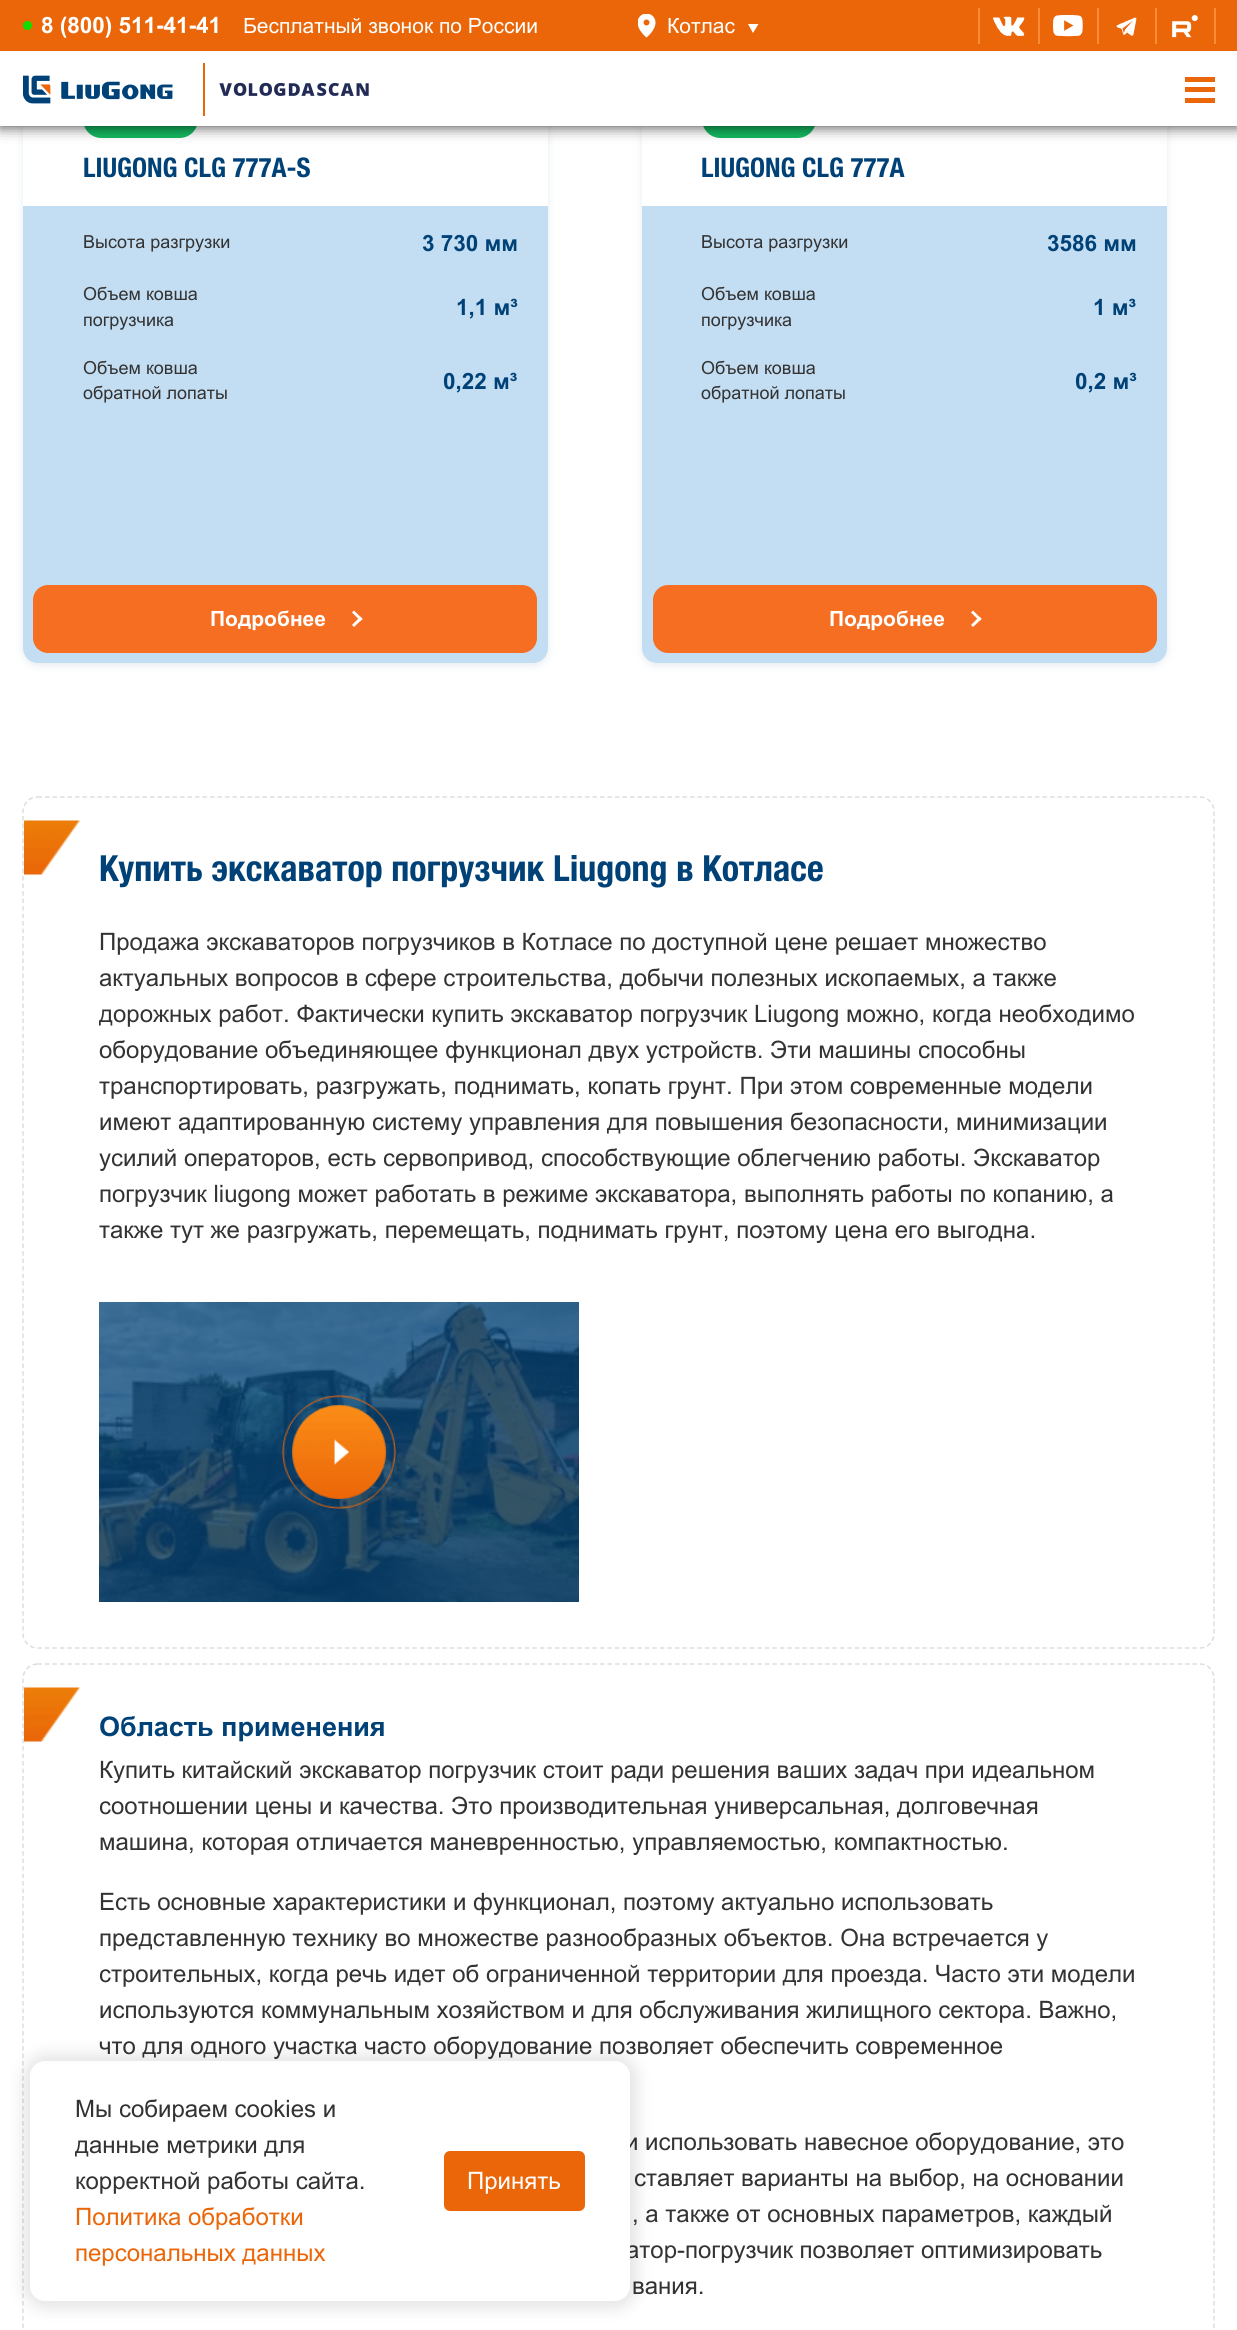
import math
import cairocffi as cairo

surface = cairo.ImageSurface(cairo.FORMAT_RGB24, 1237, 2330)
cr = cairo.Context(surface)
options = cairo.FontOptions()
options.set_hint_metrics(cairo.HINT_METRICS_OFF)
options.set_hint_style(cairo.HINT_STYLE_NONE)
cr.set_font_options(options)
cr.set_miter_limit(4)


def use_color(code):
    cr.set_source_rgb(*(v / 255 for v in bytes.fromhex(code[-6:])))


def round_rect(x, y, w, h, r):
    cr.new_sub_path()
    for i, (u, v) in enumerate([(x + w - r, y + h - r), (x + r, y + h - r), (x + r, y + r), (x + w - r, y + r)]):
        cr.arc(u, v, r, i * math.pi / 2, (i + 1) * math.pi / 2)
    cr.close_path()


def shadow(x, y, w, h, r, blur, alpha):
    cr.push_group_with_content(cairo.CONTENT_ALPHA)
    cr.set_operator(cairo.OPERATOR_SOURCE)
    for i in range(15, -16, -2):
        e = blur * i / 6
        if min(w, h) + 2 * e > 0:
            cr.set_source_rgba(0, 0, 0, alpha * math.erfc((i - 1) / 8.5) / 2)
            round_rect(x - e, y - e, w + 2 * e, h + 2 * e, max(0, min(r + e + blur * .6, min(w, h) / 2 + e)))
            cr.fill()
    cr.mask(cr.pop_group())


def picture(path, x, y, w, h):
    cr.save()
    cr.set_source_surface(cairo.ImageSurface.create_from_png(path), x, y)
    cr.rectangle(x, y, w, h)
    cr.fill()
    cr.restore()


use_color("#ffffff")
cr.paint()
use_color("#004277")
shadow(23, -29, 525, 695, 15, 4.5, 0.1)
use_color("#ffffff")
round_rect(23, -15, 525, 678, 15)
cr.fill()
use_color("#14b961")
round_rect(83, 101, 115, 37, 18.5)
cr.fill()
use_color("#004277")
shadow(642, -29, 525, 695, 15, 4.5, 0.1)
use_color("#ffffff")
round_rect(642, -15, 525, 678, 15)
cr.fill()
use_color("#14b961")
round_rect(702, 101, 114, 37, 18.5)
cr.fill()
use_color("#000000")
shadow(0, 51, 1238, 75, 0, 7.5, 0.8)
use_color("#eb6608")
cr.rectangle(0, 0, 1237, 51)
cr.fill()
use_color("#0fde00")
cr.arc(27.5, 25.5, 4.5, 0, 2 * math.pi)
cr.fill()
cr.select_font_face("Arial", cairo.FONT_SLANT_NORMAL, cairo.FONT_WEIGHT_BOLD)
cr.set_font_size(22.5)
use_color("#ffffff")
cr.move_to(41, 33)
cr.show_text("8 (800) 511-41-41")
cr.select_font_face("Arial")
cr.set_font_size(21)
cr.move_to(243, 33)
cr.show_text("Бесплатный звонок по России")
picture("img1.png", 638, 14, 18, 24)
cr.move_to(667, 33)
cr.show_text("Котлас")
cr.new_path()
cr.move_to(753, 33)
cr.line_to(748, 24)
cr.line_to(758.5, 24)
cr.close_path()
cr.fill()
use_color("#ff8a37")
cr.rectangle(1214, 8, 2, 36)
cr.fill()
cr.rectangle(978, 8, 2, 36)
cr.fill()
cr.rectangle(1038, 8, 2, 36)
cr.fill()
picture("img2.png", 993, 16, 32, 20)
cr.rectangle(1097, 8, 2, 36)
cr.fill()
picture("img3.png", 1053, 15, 30, 22)
cr.rectangle(1155, 8, 2, 36)
cr.fill()
picture("img4.png", 1116, 17, 21, 19)
picture("img5.png", 1172, 15, 26, 23)
use_color("#ffffff")
cr.rectangle(0, 51, 1237, 75)
cr.fill()
picture("img6.png", 23, 75, 150, 29)
use_color("#eb6608")
cr.rectangle(203, 63, 2, 53)
cr.fill()
picture("img7.png", 219, 82, 150, 14)
cr.rectangle(1185, 87, 30, 5)
cr.fill()
cr.rectangle(1185, 77, 30, 5)
cr.fill()
cr.rectangle(1185, 98, 30, 5)
cr.fill()
cr.select_font_face("Helvetica Neue", cairo.FONT_SLANT_NORMAL, cairo.FONT_WEIGHT_BOLD)
cr.set_font_size(27)
use_color("#004277")
cr.move_to(83, 177)
cr.show_text("LIUGONG CLG 777A-S")
use_color("#c3ddf2")
cr.rectangle(23, 206, 525, 369)
cr.fill()
cr.select_font_face("Arial")
cr.set_font_size(18)
use_color("#333333")
cr.move_to(83, 248)
cr.show_text("Высота разгрузки")
cr.select_font_face("Arial", cairo.FONT_SLANT_NORMAL, cairo.FONT_WEIGHT_BOLD)
cr.set_font_size(22.5)
use_color("#004277")
cr.move_to(422, 251)
cr.show_text("3 730 мм")
cr.select_font_face("Arial")
cr.set_font_size(18)
use_color("#333333")
cr.move_to(83, 300)
cr.show_text("Объем ковша")
cr.move_to(83, 326)
cr.show_text("погрузчика")
cr.select_font_face("Arial", cairo.FONT_SLANT_NORMAL, cairo.FONT_WEIGHT_BOLD)
cr.set_font_size(22.5)
use_color("#004277")
cr.move_to(456, 315)
cr.show_text("1,1 м³")
cr.select_font_face("Arial")
cr.set_font_size(18)
use_color("#333333")
cr.move_to(83, 374)
cr.show_text("Объем ковша")
cr.move_to(83, 399)
cr.show_text("обратной лопаты")
cr.select_font_face("Arial", cairo.FONT_SLANT_NORMAL, cairo.FONT_WEIGHT_BOLD)
cr.set_font_size(22.5)
use_color("#004277")
cr.move_to(443, 389)
cr.show_text("0,22 м³")
use_color("#c3ddf2")
cr.new_path()
cr.move_to(23, 575)
cr.line_to(548, 575)
cr.line_to(548, 648)
cr.curve_to(548, 656.5, 541.5, 663, 533, 663)
cr.line_to(38, 663)
cr.curve_to(29.5, 663, 23, 656.5, 23, 648)
cr.close_path()
cr.fill()
use_color("#f66e22")
round_rect(33, 585, 504, 68, 15)
cr.fill()
cr.set_font_size(21)
use_color("#ffffff")
cr.move_to(210, 626)
cr.show_text("Подробнее")
cr.new_path()
cr.move_to(360.5, 621)
cr.line_to(352, 612.5)
cr.line_to(354, 610.5)
cr.line_to(362.5, 619)
cr.close_path()
cr.fill()
cr.new_path()
cr.move_to(354, 627)
cr.line_to(352, 625)
cr.line_to(360.5, 616.5)
cr.line_to(362.5, 619)
cr.close_path()
cr.fill()
cr.select_font_face("Helvetica Neue", cairo.FONT_SLANT_NORMAL, cairo.FONT_WEIGHT_BOLD)
cr.set_font_size(27)
use_color("#004277")
cr.move_to(701, 177)
cr.show_text("LIUGONG CLG 777A")
use_color("#c3ddf2")
cr.rectangle(642, 206, 525, 369)
cr.fill()
cr.select_font_face("Arial")
cr.set_font_size(18)
use_color("#333333")
cr.move_to(701, 248)
cr.show_text("Высота разгрузки")
cr.select_font_face("Arial", cairo.FONT_SLANT_NORMAL, cairo.FONT_WEIGHT_BOLD)
cr.set_font_size(22.5)
use_color("#004277")
cr.move_to(1047, 251)
cr.show_text("3586 мм")
cr.select_font_face("Arial")
cr.set_font_size(18)
use_color("#333333")
cr.move_to(701, 300)
cr.show_text("Объем ковша")
cr.move_to(701, 326)
cr.show_text("погрузчика")
cr.select_font_face("Arial", cairo.FONT_SLANT_NORMAL, cairo.FONT_WEIGHT_BOLD)
cr.set_font_size(22.5)
use_color("#004277")
cr.move_to(1093, 315)
cr.show_text("1 м³")
cr.select_font_face("Arial")
cr.set_font_size(18)
use_color("#333333")
cr.move_to(701, 374)
cr.show_text("Объем ковша")
cr.move_to(701, 399)
cr.show_text("обратной лопаты")
cr.select_font_face("Arial", cairo.FONT_SLANT_NORMAL, cairo.FONT_WEIGHT_BOLD)
cr.set_font_size(22.5)
use_color("#004277")
cr.move_to(1075, 389)
cr.show_text("0,2 м³")
use_color("#c3ddf2")
cr.new_path()
cr.move_to(642, 575)
cr.line_to(1167, 575)
cr.line_to(1167, 648)
cr.curve_to(1167, 656.5, 1160.5, 663, 1152, 663)
cr.line_to(657, 663)
cr.curve_to(648.5, 663, 642, 656.5, 642, 648)
cr.close_path()
cr.fill()
use_color("#f66e22")
round_rect(653, 585, 504, 68, 15)
cr.fill()
cr.set_font_size(21)
use_color("#ffffff")
cr.move_to(829, 626)
cr.show_text("Подробнее")
cr.new_path()
cr.move_to(979.5, 621)
cr.line_to(971, 612.5)
cr.line_to(973, 610.5)
cr.line_to(981.5, 619)
cr.close_path()
cr.fill()
cr.new_path()
cr.move_to(973, 627)
cr.line_to(971, 625)
cr.line_to(979.5, 616.5)
cr.line_to(981.5, 619)
cr.close_path()
cr.fill()
cr.new_path()
cr.move_to(37.5, 797)
cr.line_to(1200, 797)
cr.curve_to(1208, 797, 1214, 803.5, 1214, 811.5)
cr.line_to(1214, 1633.5)
cr.curve_to(1214, 1641.5, 1208, 1648, 1200, 1648)
cr.line_to(37.5, 1648)
cr.curve_to(29.5, 1648, 23, 1641.5, 23, 1633.5)
cr.line_to(23, 811.5)
cr.curve_to(23, 803.5, 29.5, 797, 37.5, 797)
cr.close_path()
use_color("#dddddd")
cr.set_line_width(1.5)
cr.set_dash([4.5, 3])
cr.stroke()
picture("img8.png", 24, 820, 56, 55)
cr.select_font_face("Helvetica Neue", cairo.FONT_SLANT_NORMAL, cairo.FONT_WEIGHT_BOLD)
cr.set_font_size(36)
use_color("#004277")
cr.move_to(99, 881)
cr.show_text("Купить экскаватор погрузчик Liugong в Котласе")
cr.select_font_face("Arial")
cr.set_font_size(24)
use_color("#333333")
cr.move_to(99, 950)
cr.show_text("Продажа экскаваторов погрузчиков в Котласе по доступной цене решает множество")
cr.move_to(99, 986)
cr.show_text("актуальных вопросов в сфере строительства, добычи полезных ископаемых, а также")
cr.move_to(99, 1022)
cr.show_text("дорожных работ. Фактически купить экскаватор погрузчик Liugong можно, когда необходимо")
cr.move_to(99, 1058)
cr.show_text("оборудование объединяющее функционал двух устройств. Эти машины способны")
cr.move_to(99, 1094)
cr.show_text("транспортировать, разгружать, поднимать, копать грунт. При этом современные модели")
cr.move_to(99, 1130)
cr.show_text("имеют адаптированную систему управления для повышения безопасности, минимизации")
cr.move_to(99, 1166)
cr.show_text("усилий операторов, есть сервопривод, способствующие облегчению работы. Экскаватор")
cr.move_to(99, 1202)
cr.show_text("погрузчик liugong может работать в режиме экскаватора, выполнять работы по копанию, а")
cr.move_to(99, 1238)
cr.show_text("также тут же разгружать, перемещать, поднимать грунт, поэтому цена его выгодна.")
picture("img9.png", 99, 1302, 480, 300)
picture("img10.png", 282, 1395, 114, 114)
cr.new_path()
cr.move_to(37.5, 1664)
cr.line_to(1200, 1664)
cr.curve_to(1208, 1664, 1214, 1670.5, 1214, 1678.5)
cr.line_to(1214, 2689.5)
cr.curve_to(1214, 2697.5, 1208, 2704, 1200, 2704)
cr.line_to(37.5, 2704)
cr.curve_to(29.5, 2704, 23, 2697.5, 23, 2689.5)
cr.line_to(23, 1678.5)
cr.curve_to(23, 1670.5, 29.5, 1664, 37.5, 1664)
cr.close_path()
use_color("#dddddd")
cr.stroke()
picture("img8.png", 24, 1687, 56, 55)
cr.select_font_face("Arial", cairo.FONT_SLANT_NORMAL, cairo.FONT_WEIGHT_BOLD)
cr.set_font_size(27)
use_color("#004277")
cr.move_to(99, 1736)
cr.show_text("Область применения")
cr.select_font_face("Arial")
cr.set_font_size(24)
use_color("#333333")
cr.move_to(99, 1778)
cr.show_text("Купить китайский экскаватор погрузчик стоит ради решения ваших задач при идеальном")
cr.move_to(99, 1814)
cr.show_text("соотношении цены и качества. Это производительная универсальная, долговечная")
cr.move_to(99, 1850)
cr.show_text("машина, которая отличается маневренностью, управляемостью, компактностью.")
cr.move_to(99, 1910)
cr.show_text("Есть основные характеристики и функционал, поэтому актуально использовать")
cr.move_to(99, 1946)
cr.show_text("представленную технику во множестве разнообразных объектов. Она встречается у")
cr.move_to(99, 1982)
cr.show_text("строительных, когда речь идет об ограниченной территории для проезда. Часто эти модели")
cr.move_to(99, 2018)
cr.show_text("используются коммунальным хозяйством и для обслуживания жилищного сектора. Важно,")
cr.move_to(99, 2054)
cr.show_text("что для одного участка часто оборудование позволяет обеспечить современное")
cr.move_to(625, 2150)
cr.show_text("и использовать навесное оборудование, это")
cr.move_to(634, 2186)
cr.show_text("ставляет варианты на выбор, на основании")
cr.move_to(632, 2222)
cr.show_text(", а также от основных параметров, каждый")
cr.move_to(626, 2258)
cr.show_text("атор-погрузчик позволяет оптимизировать")
cr.move_to(632, 2294)
cr.show_text("вания.")
use_color("#000000")
shadow(23, 2054, 615, 255, 23, 7.5, 0.1)
use_color("#ffffff")
round_rect(30, 2061, 600, 240, 15)
cr.fill()
use_color("#333333")
cr.move_to(75, 2117)
cr.show_text("Мы собираем cookies и")
cr.move_to(75, 2153)
cr.show_text("данные метрики для")
cr.move_to(75, 2189)
cr.show_text("корректной работы сайта.")
use_color("#eb6608")
cr.move_to(75, 2225)
cr.show_text("Политика обработки")
cr.move_to(75, 2261)
cr.show_text("персональных данных")
round_rect(444, 2151, 141, 60, 6)
cr.fill()
use_color("#ffffff")
cr.move_to(467, 2189)
cr.show_text("Принять")
surface.write_to_png("result.png")
